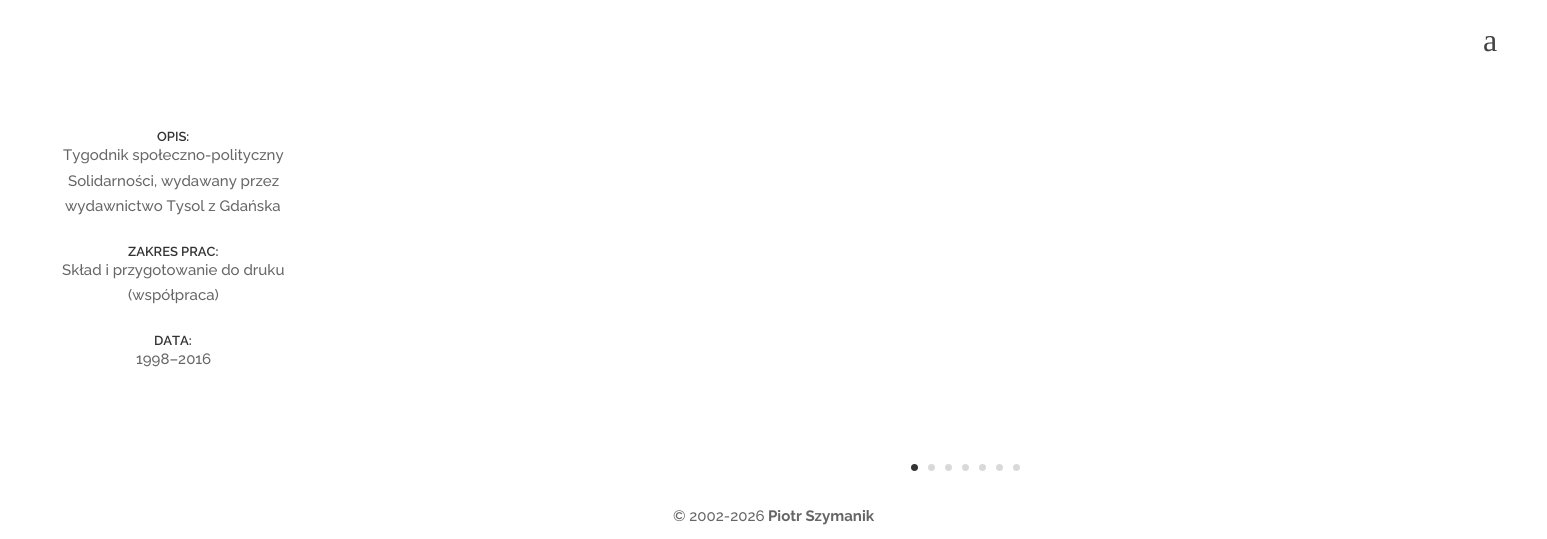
import math
import cairocffi as cairo

surface = cairo.ImageSurface(cairo.FORMAT_RGB24, 1547, 539)
cr = cairo.Context(surface)
options = cairo.FontOptions()
options.set_hint_metrics(cairo.HINT_METRICS_OFF)
options.set_hint_style(cairo.HINT_STYLE_NONE)
cr.set_font_options(options)
cr.set_miter_limit(4)


def use_color(code):
    cr.set_source_rgb(*(v / 255 for v in bytes.fromhex(code[-6:])))


use_color("#ffffff")
cr.paint()
cr.select_font_face("Liberation Serif")
cr.set_font_size(32)
use_color("#444444")
cr.move_to(1483, 51)
cr.show_text("a")
cr.select_font_face("Raleway SemiBold")
cr.set_font_size(13)
use_color("#333333")
cr.move_to(157, 141)
cr.show_text("OPIS:")
cr.select_font_face("Raleway Medium")
cr.set_font_size(15)
use_color("#666666")
cr.move_to(63, 160)
cr.show_text("Tygodnik społeczno-polityczny")
cr.move_to(68, 186)
cr.show_text("Solidarności, wydawany przez")
cr.move_to(65, 211)
cr.show_text("wydawnictwo Tysol z Gdańska")
cr.select_font_face("Raleway SemiBold")
cr.set_font_size(13)
use_color("#333333")
cr.move_to(128, 256)
cr.show_text("ZAKRES PRAC:")
cr.select_font_face("Raleway Medium")
cr.set_font_size(15)
use_color("#666666")
cr.move_to(62, 275)
cr.show_text("Skład i przygotowanie do druku")
cr.move_to(128, 300)
cr.show_text("(współpraca)")
cr.select_font_face("Raleway SemiBold")
cr.set_font_size(13)
use_color("#333333")
cr.move_to(154, 345)
cr.show_text("DATA:")
cr.select_font_face("Raleway Medium")
cr.set_font_size(15)
use_color("#666666")
cr.move_to(136, 364)
cr.show_text("1998–2016")
use_color("#333333")
cr.new_path()
cr.arc(914.5, 467.5, 3.5, 0, 2 * math.pi)
cr.fill()
use_color("#d9d9d9")
cr.arc(931.5, 467.5, 3.5, 0, 2 * math.pi)
cr.fill()
cr.arc(948.5, 467.5, 3.5, 0, 2 * math.pi)
cr.fill()
cr.arc(965.5, 467.5, 3.5, 0, 2 * math.pi)
cr.fill()
cr.arc(982.5, 467.5, 3.5, 0, 2 * math.pi)
cr.fill()
cr.arc(999.5, 467.5, 3.5, 0, 2 * math.pi)
cr.fill()
cr.arc(1016.5, 467.5, 3.5, 0, 2 * math.pi)
cr.fill()
use_color("#666666")
cr.move_to(673, 521)
cr.show_text("© 2002-2026")
cr.select_font_face("Raleway", cairo.FONT_SLANT_NORMAL, cairo.FONT_WEIGHT_BOLD)
cr.move_to(768, 521)
cr.show_text("Piotr Szymanik")
surface.write_to_png("result.png")
